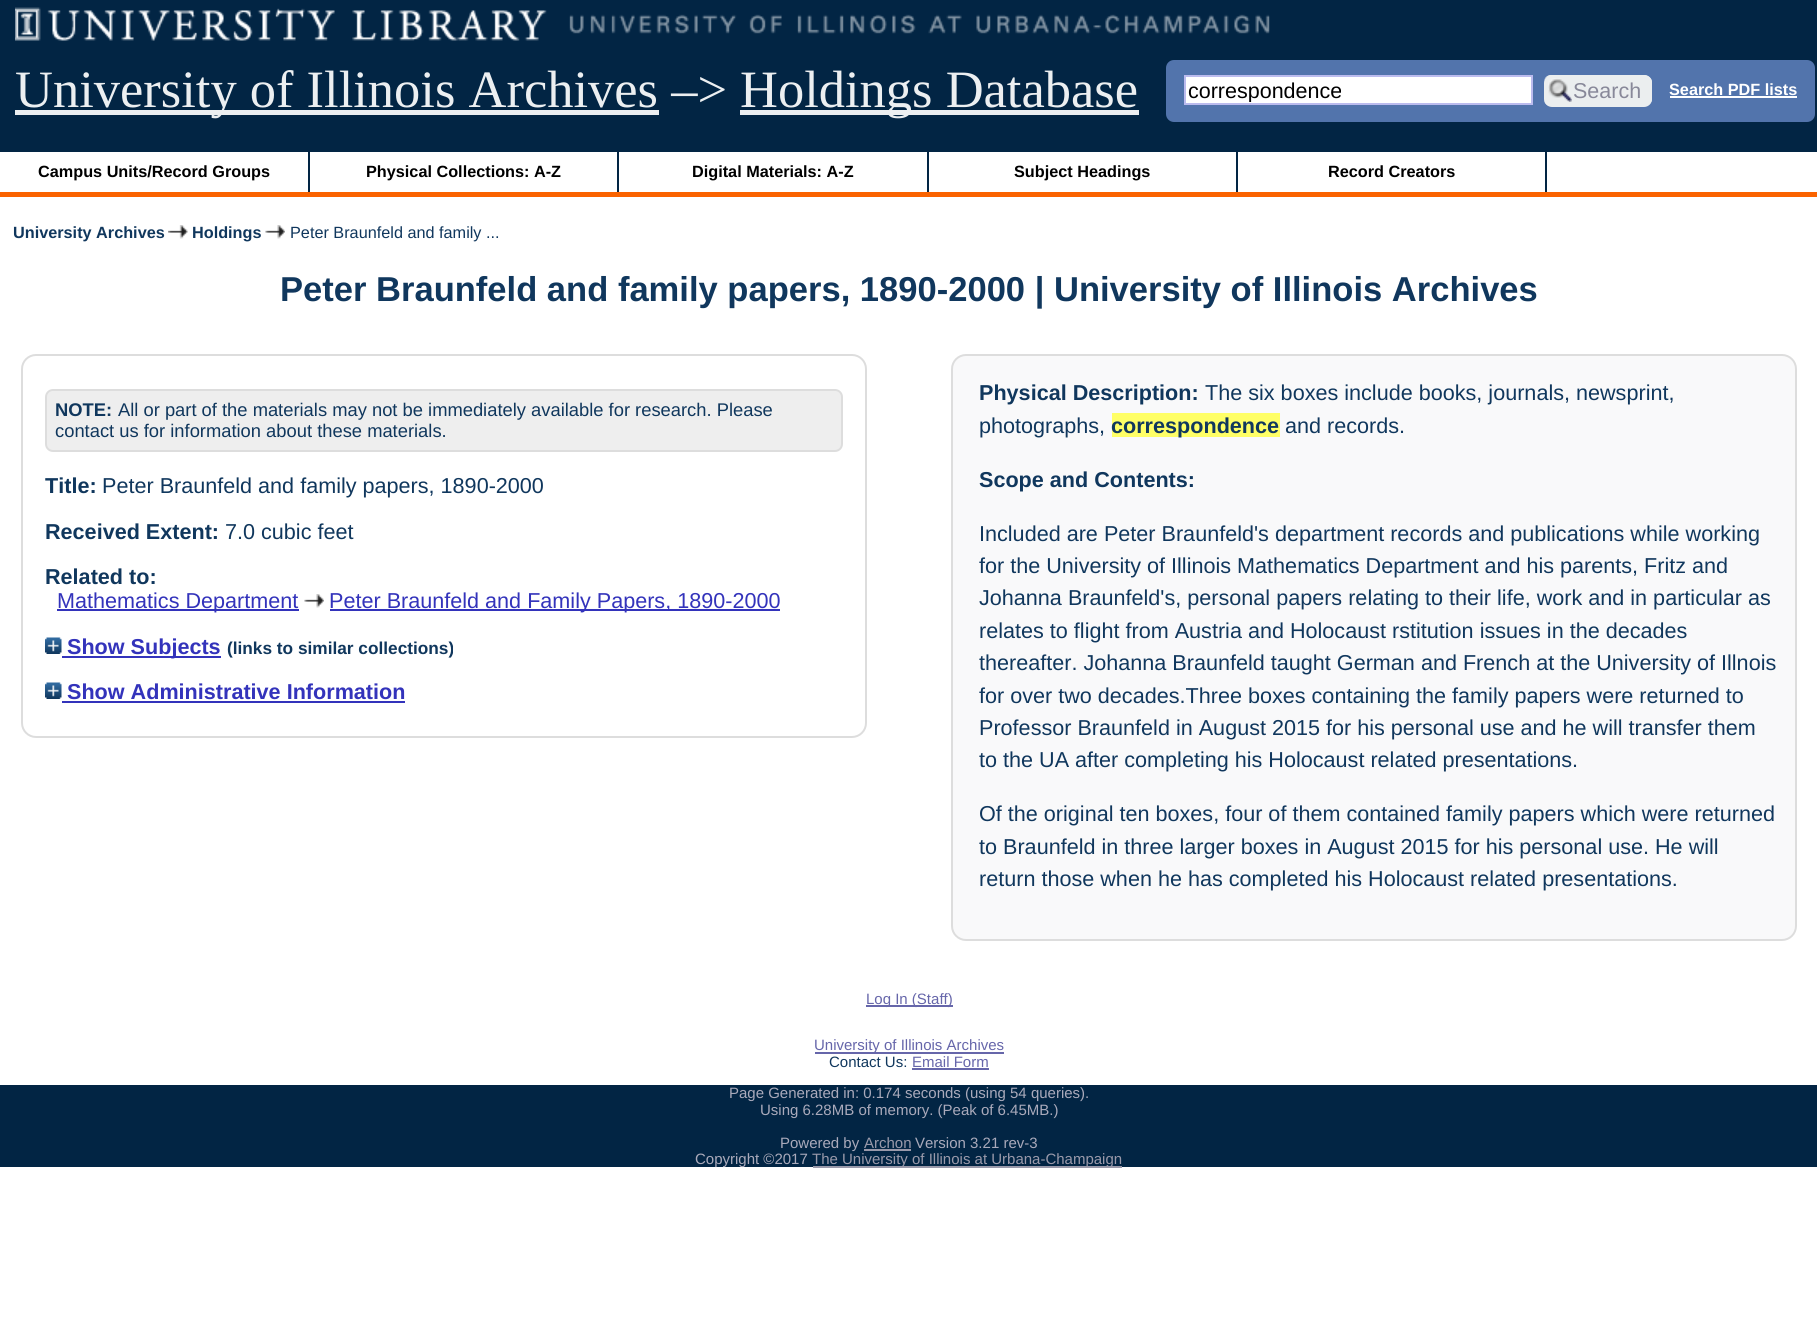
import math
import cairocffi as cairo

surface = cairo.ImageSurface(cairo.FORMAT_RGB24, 1817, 1330)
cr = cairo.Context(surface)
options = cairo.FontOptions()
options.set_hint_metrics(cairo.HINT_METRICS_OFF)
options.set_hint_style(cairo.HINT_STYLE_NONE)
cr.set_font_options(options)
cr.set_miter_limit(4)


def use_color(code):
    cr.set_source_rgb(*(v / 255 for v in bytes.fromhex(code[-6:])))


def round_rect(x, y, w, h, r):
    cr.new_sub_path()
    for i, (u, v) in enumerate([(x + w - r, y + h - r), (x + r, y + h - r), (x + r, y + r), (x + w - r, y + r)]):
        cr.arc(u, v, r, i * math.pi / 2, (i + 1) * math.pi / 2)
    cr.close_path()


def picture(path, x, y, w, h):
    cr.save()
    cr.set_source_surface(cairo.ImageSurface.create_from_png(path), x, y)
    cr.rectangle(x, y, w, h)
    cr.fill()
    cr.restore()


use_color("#ffffff")
cr.paint()
use_color("#022544")
cr.rectangle(0, 0, 1817, 152)
cr.fill()
picture("img1.png", 15, 7, 1255, 34)
use_color("#fa6300")
cr.rectangle(0, 192, 1817, 5)
cr.fill()
use_color("#eceff1")
cr.rectangle(15, 110, 644, 5)
cr.fill()
cr.select_font_face("Liberation Serif")
cr.set_font_size(52.5)
cr.move_to(15, 107)
cr.show_text("University of Illinois Archives –>")
cr.rectangle(740, 110, 399, 5)
cr.fill()
cr.move_to(740, 107)
cr.show_text("Holdings Database")
use_color("#5274ac")
round_rect(1167, 61, 647, 60, 7)
cr.fill_preserve()
cr.stroke()
use_color("#ffffff")
cr.rectangle(1185, 76, 347, 28)
cr.fill_preserve()
use_color("#bbbbee")
cr.stroke()
cr.save()
cr.rectangle(1188, 78, 341, 24)
cr.clip()
cr.select_font_face("Liberation Sans")
cr.set_font_size(21.5)
use_color("#000000")
cr.move_to(1188, 98)
cr.show_text("correspondence")
cr.restore()
use_color("#ebeeef")
round_rect(1544, 75, 108, 32, 8)
cr.fill()
picture("img2.png", 1548, 78, 24, 24)
cr.set_fill_rule(cairo.FILL_RULE_EVEN_ODD)
cr.new_path()
cr.move_to(1551, 75)
cr.line_to(1644, 75)
cr.curve_to(1648, 75, 1652, 78, 1652, 82)
cr.line_to(1652, 99)
cr.curve_to(1652, 103, 1648, 106, 1644, 106)
cr.line_to(1551, 106)
cr.curve_to(1547, 106, 1544, 103, 1544, 99)
cr.line_to(1544, 82)
cr.curve_to(1544, 78, 1547, 75, 1551, 75)
cr.close_path()
cr.move_to(1551, 76)
cr.line_to(1644, 76)
cr.curve_to(1647, 76, 1650, 79, 1650, 82)
cr.line_to(1650, 99)
cr.curve_to(1650, 102, 1647, 105, 1644, 105)
cr.line_to(1551, 105)
cr.curve_to(1547, 105, 1544, 102, 1544, 99)
cr.line_to(1544, 82)
cr.curve_to(1544, 79, 1547, 76, 1551, 76)
cr.close_path()
cr.fill()
cr.select_font_face("Liberation Sans")
cr.set_font_size(21.5)
use_color("#888899")
cr.move_to(1573, 98)
cr.show_text("Search")
cr.select_font_face("Liberation Sans", cairo.FONT_SLANT_NORMAL, cairo.FONT_WEIGHT_BOLD)
cr.set_font_size(16.25)
use_color("#ffffff")
cr.move_to(1669, 95)
cr.show_text("Search PDF lists")
cr.rectangle(1670, 96, 127, 2)
cr.fill()
use_color("#022544")
cr.rectangle(308, 152, 2, 40)
cr.fill()
use_color("#000000")
cr.move_to(38, 177)
cr.show_text("Campus Units/Record Groups")
use_color("#022544")
cr.rectangle(617, 152, 2, 40)
cr.fill()
use_color("#000000")
cr.move_to(366, 177)
cr.show_text("Physical Collections: A-Z")
use_color("#022544")
cr.rectangle(927, 152, 2, 40)
cr.fill()
use_color("#000000")
cr.move_to(692, 177)
cr.show_text("Digital Materials: A-Z")
use_color("#022544")
cr.rectangle(1236, 152, 2, 40)
cr.fill()
use_color("#000000")
cr.move_to(1014, 177)
cr.show_text("Subject Headings")
use_color("#022544")
cr.rectangle(1545, 152, 2, 40)
cr.fill()
use_color("#000000")
cr.move_to(1328, 177)
cr.show_text("Record Creators")
use_color("#10375d")
cr.move_to(13, 238)
cr.show_text("University Archives")
picture("img3.png", 168, 225, 20, 14)
cr.move_to(192, 238)
cr.show_text("Holdings")
picture("img4.png", 265, 225, 20, 14)
cr.select_font_face("Liberation Sans")
cr.move_to(290, 238)
cr.show_text("Peter Braunfeld and family ...")
cr.select_font_face("Liberation Sans", cairo.FONT_SLANT_NORMAL, cairo.FONT_WEIGHT_BOLD)
cr.set_font_size(34.55)
cr.move_to(280, 301)
cr.show_text("Peter Braunfeld and family papers, 1890-2000 | University of Illinois Archives")
round_rect(22, 355, 844, 382, 14)
use_color("#dddddd")
cr.stroke()
use_color("#eeeeee")
round_rect(46, 390, 796, 61, 7)
cr.fill_preserve()
use_color("#dddddd")
cr.stroke()
cr.set_font_size(18.35)
use_color("#10375d")
cr.move_to(55, 416)
cr.show_text("NOTE:")
cr.select_font_face("Liberation Sans")
cr.move_to(118, 416)
cr.show_text("All or part of the materials may not be immediately available for research. Please")
cr.move_to(55, 437)
cr.show_text("contact us for information about these materials.")
cr.select_font_face("Liberation Sans", cairo.FONT_SLANT_NORMAL, cairo.FONT_WEIGHT_BOLD)
cr.set_font_size(21.6)
cr.move_to(45, 493)
cr.show_text("Title:")
cr.select_font_face("Liberation Sans")
cr.move_to(102, 493)
cr.show_text("Peter Braunfeld and family papers, 1890-2000")
cr.select_font_face("Liberation Sans", cairo.FONT_SLANT_NORMAL, cairo.FONT_WEIGHT_BOLD)
cr.move_to(45, 539)
cr.show_text("Received Extent:")
cr.select_font_face("Liberation Sans")
cr.move_to(225, 539)
cr.show_text("7.0 cubic feet")
cr.select_font_face("Liberation Sans", cairo.FONT_SLANT_NORMAL, cairo.FONT_WEIGHT_BOLD)
cr.move_to(45, 584)
cr.show_text("Related to:")
use_color("#3333bb")
cr.rectangle(57, 609, 242, 2)
cr.fill()
cr.select_font_face("Liberation Sans")
cr.move_to(57, 608)
cr.show_text("Mathematics Department")
picture("img4.png", 304, 594, 20, 14)
cr.rectangle(330, 609, 450, 2)
cr.fill()
cr.move_to(329, 608)
cr.show_text("Peter Braunfeld and Family Papers, 1890-2000")
picture("img5.png", 45, 637, 17, 17)
cr.rectangle(62, 656, 159, 2)
cr.fill()
cr.select_font_face("Liberation Sans", cairo.FONT_SLANT_NORMAL, cairo.FONT_WEIGHT_BOLD)
cr.move_to(67, 654)
cr.show_text("Show Subjects")
cr.set_font_size(17.25)
use_color("#10375d")
cr.move_to(227, 654)
cr.show_text("(links to similar collections)")
picture("img5.png", 45, 682, 17, 17)
cr.set_font_size(21.6)
use_color("#3333bb")
cr.move_to(67, 699)
cr.show_text("Show Administrative Information")
cr.rectangle(62, 701, 343, 2)
cr.fill()
use_color("#f9f9fa")
round_rect(952, 355, 844, 585, 14)
cr.fill_preserve()
use_color("#dddddd")
cr.stroke()
use_color("#10375d")
cr.move_to(979, 400)
cr.show_text("Physical Description:")
cr.select_font_face("Liberation Sans")
cr.move_to(1205, 400)
cr.show_text("The six boxes include books, journals, newsprint,")
cr.move_to(979, 433)
cr.show_text("photographs,")
use_color("#ffff66")
cr.rectangle(1112, 413, 168, 24)
cr.fill()
cr.select_font_face("Liberation Sans", cairo.FONT_SLANT_NORMAL, cairo.FONT_WEIGHT_BOLD)
use_color("#10375d")
cr.move_to(1111, 433)
cr.show_text("correspondence")
cr.select_font_face("Liberation Sans")
cr.move_to(1285, 433)
cr.show_text("and records.")
cr.select_font_face("Liberation Sans", cairo.FONT_SLANT_NORMAL, cairo.FONT_WEIGHT_BOLD)
cr.move_to(979, 487)
cr.show_text("Scope and Contents:")
cr.select_font_face("Liberation Sans")
cr.move_to(979, 541)
cr.show_text("Included are Peter Braunfeld's department records and publications while working")
cr.move_to(979, 573)
cr.show_text("for the University of Illinois Mathematics Department and his parents, Fritz and")
cr.move_to(979, 605)
cr.show_text("Johanna Braunfeld's, personal papers relating to their life, work and in particular as")
cr.move_to(979, 638)
cr.show_text("relates to flight from Austria and Holocaust rstitution issues in the decades")
cr.move_to(979, 670)
cr.show_text("thereafter. Johanna Braunfeld taught German and French at the University of Illnois")
cr.move_to(979, 703)
cr.show_text("for over two decades.Three boxes containing the family papers were returned to")
cr.move_to(979, 735)
cr.show_text("Professor Braunfeld in August 2015 for his personal use and he will transfer them")
cr.move_to(979, 767)
cr.show_text("to the UA after completing his Holocaust related presentations.")
cr.move_to(979, 821)
cr.show_text("Of the original ten boxes, four of them contained family papers which were returned")
cr.move_to(979, 854)
cr.show_text("to Braunfeld in three larger boxes in August 2015 for his personal use. He will")
cr.move_to(979, 886)
cr.show_text("return those when he has completed his Holocaust related presentations.")
use_color("#6666aa")
cr.rectangle(866, 1005, 87, 2)
cr.fill()
cr.set_font_size(15)
cr.move_to(866, 1004)
cr.show_text("Log In (Staff)")
cr.rectangle(815, 1052, 189, 2)
cr.fill()
cr.move_to(814, 1050)
cr.show_text("University of Illinois Archives")
use_color("#10375d")
cr.move_to(829, 1067)
cr.show_text("Contact Us:")
use_color("#6666aa")
cr.move_to(912, 1067)
cr.show_text("Email Form")
cr.rectangle(912, 1068, 77, 2)
cr.fill()
use_color("#022544")
cr.rectangle(0, 1085, 1817, 82)
cr.fill()
use_color("#aaaabb")
cr.move_to(729, 1098)
cr.show_text("Page Generated in: 0.174 seconds (using 54 queries).")
cr.move_to(760, 1115)
cr.show_text("Using 6.28MB of memory. (Peak of 6.45MB.)")
cr.move_to(780, 1148)
cr.show_text("Powered by")
use_color("#9999aa")
cr.move_to(864, 1148)
cr.show_text("Archon")
cr.rectangle(864, 1149, 47, 2)
cr.fill()
use_color("#aaaabb")
cr.move_to(915, 1148)
cr.show_text("Version 3.21 rev-3")
cr.move_to(695, 1164)
cr.show_text("Copyright ©2017")
use_color("#9999aa")
cr.rectangle(813, 1166, 309, 2)
cr.fill()
cr.move_to(812, 1164)
cr.show_text("The University of Illinois at Urbana-Champaign")
surface.write_to_png("result.png")
